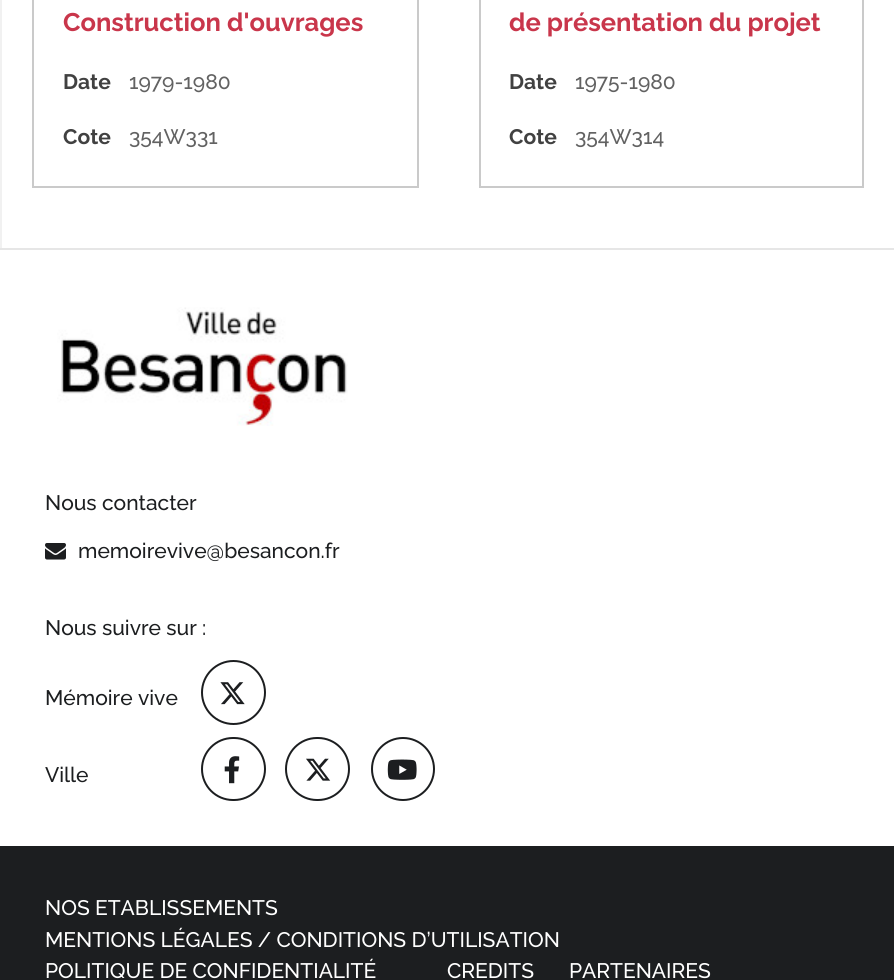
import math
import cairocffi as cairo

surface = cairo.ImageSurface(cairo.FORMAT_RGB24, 894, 980)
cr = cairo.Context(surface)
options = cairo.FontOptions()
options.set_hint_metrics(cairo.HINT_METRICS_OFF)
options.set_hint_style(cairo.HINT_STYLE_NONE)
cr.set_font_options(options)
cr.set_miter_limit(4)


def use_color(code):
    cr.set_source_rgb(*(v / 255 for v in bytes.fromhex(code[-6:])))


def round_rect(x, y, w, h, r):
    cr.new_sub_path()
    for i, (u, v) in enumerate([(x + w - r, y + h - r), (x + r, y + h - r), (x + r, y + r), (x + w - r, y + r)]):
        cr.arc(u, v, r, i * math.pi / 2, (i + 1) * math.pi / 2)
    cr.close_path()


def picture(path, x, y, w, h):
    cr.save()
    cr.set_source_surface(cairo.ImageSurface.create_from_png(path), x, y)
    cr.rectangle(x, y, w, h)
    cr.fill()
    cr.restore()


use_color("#ffffff")
cr.paint()
use_color("#f1f1f1")
cr.rectangle(0, 0, 2, 248)
cr.fill()
cr.rectangle(33, -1, 385, 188)
use_color("#cacaca")
cr.stroke()
cr.select_font_face("Raleway", cairo.FONT_SLANT_NORMAL, cairo.FONT_WEIGHT_BOLD)
cr.set_font_size(25.5)
use_color("#c9364b")
cr.move_to(63, 31)
cr.show_text("Construction d'ouvrages")
cr.set_font_size(21)
use_color("#414141")
cr.move_to(63, 89)
cr.show_text("Date")
cr.select_font_face("Raleway Medium")
use_color("#626262")
cr.move_to(129, 89)
cr.show_text("1979-1980")
cr.select_font_face("Raleway", cairo.FONT_SLANT_NORMAL, cairo.FONT_WEIGHT_BOLD)
use_color("#414141")
cr.move_to(63, 144)
cr.show_text("Cote")
cr.select_font_face("Raleway Medium")
use_color("#626262")
cr.move_to(129, 144)
cr.show_text("354W331")
cr.rectangle(480, -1, 383, 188)
use_color("#cacaca")
cr.stroke()
cr.select_font_face("Raleway", cairo.FONT_SLANT_NORMAL, cairo.FONT_WEIGHT_BOLD)
cr.set_font_size(25.5)
use_color("#c9364b")
cr.move_to(509, 31)
cr.show_text("de présentation du projet")
cr.set_font_size(21)
use_color("#414141")
cr.move_to(509, 89)
cr.show_text("Date")
cr.select_font_face("Raleway Medium")
use_color("#626262")
cr.move_to(575, 89)
cr.show_text("1975-1980")
cr.select_font_face("Raleway", cairo.FONT_SLANT_NORMAL, cairo.FONT_WEIGHT_BOLD)
use_color("#414141")
cr.move_to(509, 144)
cr.show_text("Cote")
cr.select_font_face("Raleway Medium")
use_color("#626262")
cr.move_to(575, 144)
cr.show_text("354W314")
use_color("#e6e6e6")
cr.rectangle(0, 248, 894, 2)
cr.fill()
picture("img1.png", 57, 307, 291, 119)
use_color("#1c1e20")
cr.move_to(45, 510)
cr.show_text("Nous contacter")
picture("img2.png", 45, 543, 21, 17)
cr.move_to(78, 558)
cr.show_text("memoirevive@besancon.fr")
cr.move_to(45, 635)
cr.show_text("Nous suivre sur :")
cr.move_to(45, 705)
cr.show_text("Mémoire vive")
cr.new_path()
cr.arc(233.5, 692.5, 31.5, 0, 2 * math.pi)
cr.stroke()
picture("img3.png", 220, 682, 25, 23)
cr.move_to(45, 782)
cr.show_text("Ville")
round_rect(202, 738, 63, 62, 31)
cr.stroke()
picture("img4.png", 224, 756, 16, 28)
round_rect(286, 738, 63, 62, 31)
cr.stroke()
picture("img5.png", 306, 758, 25, 23)
cr.arc(403, 769, 31, 0, 2 * math.pi)
cr.stroke()
picture("img6.png", 387, 759, 30, 21)
cr.rectangle(0, 846, 894, 134)
cr.fill()
use_color("#ffffff")
cr.move_to(45, 915)
cr.show_text("NOS ETABLISSEMENTS")
cr.move_to(45, 947)
cr.show_text("MENTIONS LÉGALES / CONDITIONS D’UTILISATION")
cr.move_to(45, 978)
cr.show_text("POLITIQUE DE CONFIDENTIALITÉ")
cr.move_to(447, 978)
cr.show_text("CREDITS")
cr.move_to(569, 978)
cr.show_text("PARTENAIRES")
surface.write_to_png("result.png")
